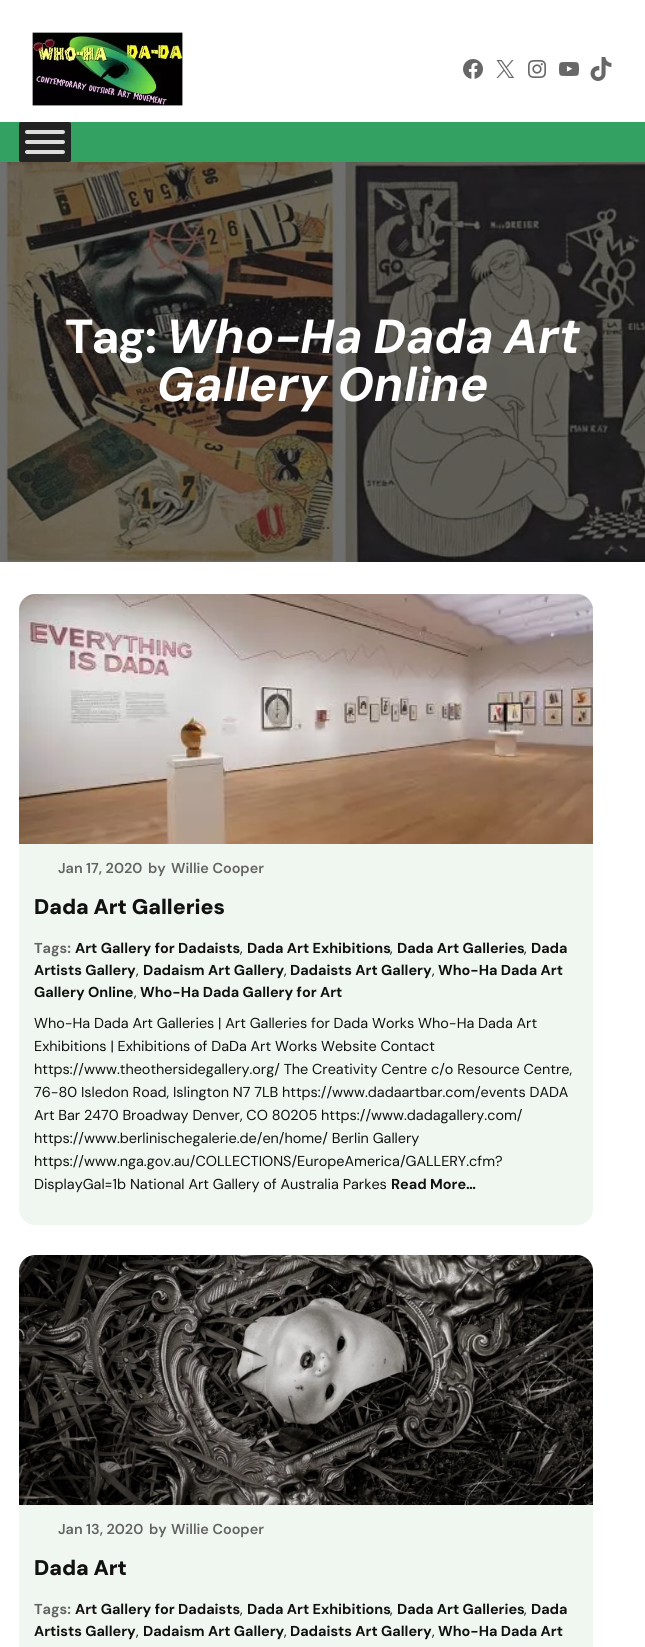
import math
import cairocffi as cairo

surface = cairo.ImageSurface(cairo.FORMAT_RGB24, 645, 1647)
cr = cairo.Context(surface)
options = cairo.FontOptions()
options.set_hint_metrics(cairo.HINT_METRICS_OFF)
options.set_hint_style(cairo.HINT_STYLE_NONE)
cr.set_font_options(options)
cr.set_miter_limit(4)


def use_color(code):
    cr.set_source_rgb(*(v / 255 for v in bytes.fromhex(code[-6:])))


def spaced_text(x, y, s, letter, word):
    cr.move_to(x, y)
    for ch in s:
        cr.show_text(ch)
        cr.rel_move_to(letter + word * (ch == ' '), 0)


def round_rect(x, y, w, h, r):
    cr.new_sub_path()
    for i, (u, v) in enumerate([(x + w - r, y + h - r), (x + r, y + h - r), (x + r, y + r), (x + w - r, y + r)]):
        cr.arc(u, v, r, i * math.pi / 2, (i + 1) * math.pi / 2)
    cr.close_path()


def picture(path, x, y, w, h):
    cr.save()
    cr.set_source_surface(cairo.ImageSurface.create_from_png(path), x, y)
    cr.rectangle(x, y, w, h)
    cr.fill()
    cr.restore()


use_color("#ffffff")
cr.paint()
picture("img1.png", 32, 32, 151, 74)
picture("img2.png", 463, 59, 20, 20)
picture("img3.png", 496, 60, 18, 18)
picture("img4.png", 528, 60, 18, 18)
picture("img5.png", 559, 62, 20, 14)
picture("img6.png", 590, 57, 22, 24)
use_color("#33a162")
cr.rectangle(0, 122, 645, 40)
cr.fill()
use_color("#222222")
round_rect(19, 122, 52, 40, 2)
cr.fill()
use_color("#dddddd")
round_rect(25, 130, 40, 4, 2)
cr.fill()
round_rect(25, 140, 40, 4, 2)
cr.fill()
round_rect(25, 150, 40, 4, 2)
cr.fill()
picture("img7.png", 0, 162, 645, 400)
cr.select_font_face("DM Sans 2", cairo.FONT_SLANT_NORMAL, cairo.FONT_WEIGHT_BOLD)
cr.set_font_size(47.75)
use_color("#ffffff")
cr.move_to(66, 353)
cr.show_text("Tag:")
cr.select_font_face("DM Sans", cairo.FONT_SLANT_ITALIC, cairo.FONT_WEIGHT_BOLD)
spaced_text(166, 353, "Who-Ha Dada Art", 0, -1)
spaced_text(157, 401, "Gallery Online", 0, -1)
use_color("#eff7f0")
round_rect(19, 594, 574, 631, 16)
cr.fill()
picture("img8.png", 19, 594, 574, 250)
cr.select_font_face("DM Sans SemiBold")
cr.set_font_size(14.4)
use_color("#636363")
cr.move_to(58, 873)
cr.show_text("Jan 17, 2020")
cr.move_to(148, 873)
cr.show_text("by")
cr.move_to(171, 873)
cr.show_text("Willie Cooper")
cr.select_font_face("DM Sans Black")
cr.set_font_size(21.25)
use_color("#111111")
cr.move_to(34, 914)
cr.show_text("Dada Art Galleries")
cr.select_font_face("DM Sans", cairo.FONT_SLANT_NORMAL, cairo.FONT_WEIGHT_BOLD)
cr.set_font_size(14.4)
use_color("#636363")
cr.move_to(34, 953)
cr.show_text("Tags:")
use_color("#111111")
cr.move_to(75, 953)
cr.show_text("Art Gallery for Dadaists")
cr.select_font_face("DM Sans")
cr.move_to(240, 953)
cr.show_text(",")
cr.select_font_face("DM Sans", cairo.FONT_SLANT_NORMAL, cairo.FONT_WEIGHT_BOLD)
cr.move_to(247, 953)
cr.show_text("Dada Art Exhibitions")
cr.select_font_face("DM Sans")
cr.move_to(390, 953)
cr.show_text(",")
cr.select_font_face("DM Sans", cairo.FONT_SLANT_NORMAL, cairo.FONT_WEIGHT_BOLD)
cr.move_to(397, 953)
cr.show_text("Dada Art Galleries")
cr.select_font_face("DM Sans")
cr.move_to(524, 953)
cr.show_text(",")
cr.select_font_face("DM Sans", cairo.FONT_SLANT_NORMAL, cairo.FONT_WEIGHT_BOLD)
cr.move_to(531, 953)
cr.show_text("Dada")
cr.move_to(34, 975)
cr.show_text("Artists Gallery")
cr.select_font_face("DM Sans")
cr.move_to(136, 975)
cr.show_text(",")
cr.select_font_face("DM Sans", cairo.FONT_SLANT_NORMAL, cairo.FONT_WEIGHT_BOLD)
cr.move_to(143, 975)
cr.show_text("Dadaism Art Gallery")
cr.select_font_face("DM Sans")
cr.move_to(284, 975)
cr.show_text(",")
cr.select_font_face("DM Sans", cairo.FONT_SLANT_NORMAL, cairo.FONT_WEIGHT_BOLD)
cr.move_to(290, 975)
cr.show_text("Dadaists Art Gallery")
cr.select_font_face("DM Sans")
cr.move_to(432, 975)
cr.show_text(",")
cr.select_font_face("DM Sans", cairo.FONT_SLANT_NORMAL, cairo.FONT_WEIGHT_BOLD)
cr.move_to(438, 975)
cr.show_text("Who-Ha Dada Art")
cr.move_to(34, 997)
cr.show_text("Gallery Online")
cr.select_font_face("DM Sans")
cr.move_to(134, 997)
cr.show_text(",")
cr.select_font_face("DM Sans", cairo.FONT_SLANT_NORMAL, cairo.FONT_WEIGHT_BOLD)
cr.move_to(140, 997)
cr.show_text("Who-Ha Dada Gallery for Art")
cr.select_font_face("DM Sans")
cr.move_to(34, 1028)
cr.show_text("Who-Ha Dada Art Galleries | Art Galleries for Dada Works Who-Ha Dada Art")
cr.move_to(34, 1051)
cr.show_text("Exhibitions | Exhibitions of DaDa Art Works Website Contact")
cr.move_to(34, 1074)
cr.show_text("https://www.theothersidegallery.org/ The Creativity Centre c/o Resource Centre,")
cr.move_to(34, 1097)
cr.show_text("76-80 Isledon Road, Islington N7 7LB https://www.dadaartbar.com/events DADA")
cr.move_to(34, 1120)
cr.show_text("Art Bar 2470 Broadway Denver, CO 80205 https://www.dadagallery.com/")
cr.move_to(34, 1143)
cr.show_text("https://www.berlinischegalerie.de/en/home/ Berlin Gallery")
cr.move_to(34, 1166)
cr.show_text("https://www.nga.gov.au/COLLECTIONS/EuropeAmerica/GALLERY.cfm?")
cr.move_to(34, 1189)
cr.show_text("DisplayGal=1b National Art Gallery of Australia Parkes")
cr.select_font_face("DM Sans", cairo.FONT_SLANT_NORMAL, cairo.FONT_WEIGHT_BOLD)
cr.move_to(391, 1189)
cr.show_text("Read More…")
use_color("#eff7f0")
round_rect(19, 1255, 574, 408, 16)
cr.fill()
picture("img9.png", 19, 1255, 574, 250)
cr.select_font_face("DM Sans SemiBold")
use_color("#636363")
cr.move_to(58, 1534)
cr.show_text("Jan 13, 2020")
cr.move_to(149, 1534)
cr.show_text("by")
cr.move_to(171, 1534)
cr.show_text("Willie Cooper")
cr.select_font_face("DM Sans Black")
cr.set_font_size(21.25)
use_color("#111111")
cr.move_to(34, 1575)
cr.show_text("Dada Art")
cr.select_font_face("DM Sans", cairo.FONT_SLANT_NORMAL, cairo.FONT_WEIGHT_BOLD)
cr.set_font_size(14.4)
use_color("#636363")
cr.move_to(34, 1614)
cr.show_text("Tags:")
use_color("#111111")
cr.move_to(75, 1614)
cr.show_text("Art Gallery for Dadaists")
cr.select_font_face("DM Sans")
cr.move_to(240, 1614)
cr.show_text(",")
cr.select_font_face("DM Sans", cairo.FONT_SLANT_NORMAL, cairo.FONT_WEIGHT_BOLD)
cr.move_to(247, 1614)
cr.show_text("Dada Art Exhibitions")
cr.select_font_face("DM Sans")
cr.move_to(390, 1614)
cr.show_text(",")
cr.select_font_face("DM Sans", cairo.FONT_SLANT_NORMAL, cairo.FONT_WEIGHT_BOLD)
cr.move_to(397, 1614)
cr.show_text("Dada Art Galleries")
cr.select_font_face("DM Sans")
cr.move_to(524, 1614)
cr.show_text(",")
cr.select_font_face("DM Sans", cairo.FONT_SLANT_NORMAL, cairo.FONT_WEIGHT_BOLD)
cr.move_to(531, 1614)
cr.show_text("Dada")
cr.move_to(34, 1636)
cr.show_text("Artists Gallery")
cr.select_font_face("DM Sans")
cr.move_to(136, 1636)
cr.show_text(",")
cr.select_font_face("DM Sans", cairo.FONT_SLANT_NORMAL, cairo.FONT_WEIGHT_BOLD)
cr.move_to(143, 1636)
cr.show_text("Dadaism Art Gallery")
cr.select_font_face("DM Sans")
cr.move_to(284, 1636)
cr.show_text(",")
cr.select_font_face("DM Sans", cairo.FONT_SLANT_NORMAL, cairo.FONT_WEIGHT_BOLD)
cr.move_to(290, 1636)
cr.show_text("Dadaists Art Gallery")
cr.select_font_face("DM Sans")
cr.move_to(432, 1636)
cr.show_text(",")
cr.select_font_face("DM Sans", cairo.FONT_SLANT_NORMAL, cairo.FONT_WEIGHT_BOLD)
cr.move_to(438, 1636)
cr.show_text("Who-Ha Dada Art")
surface.write_to_png("result.png")
